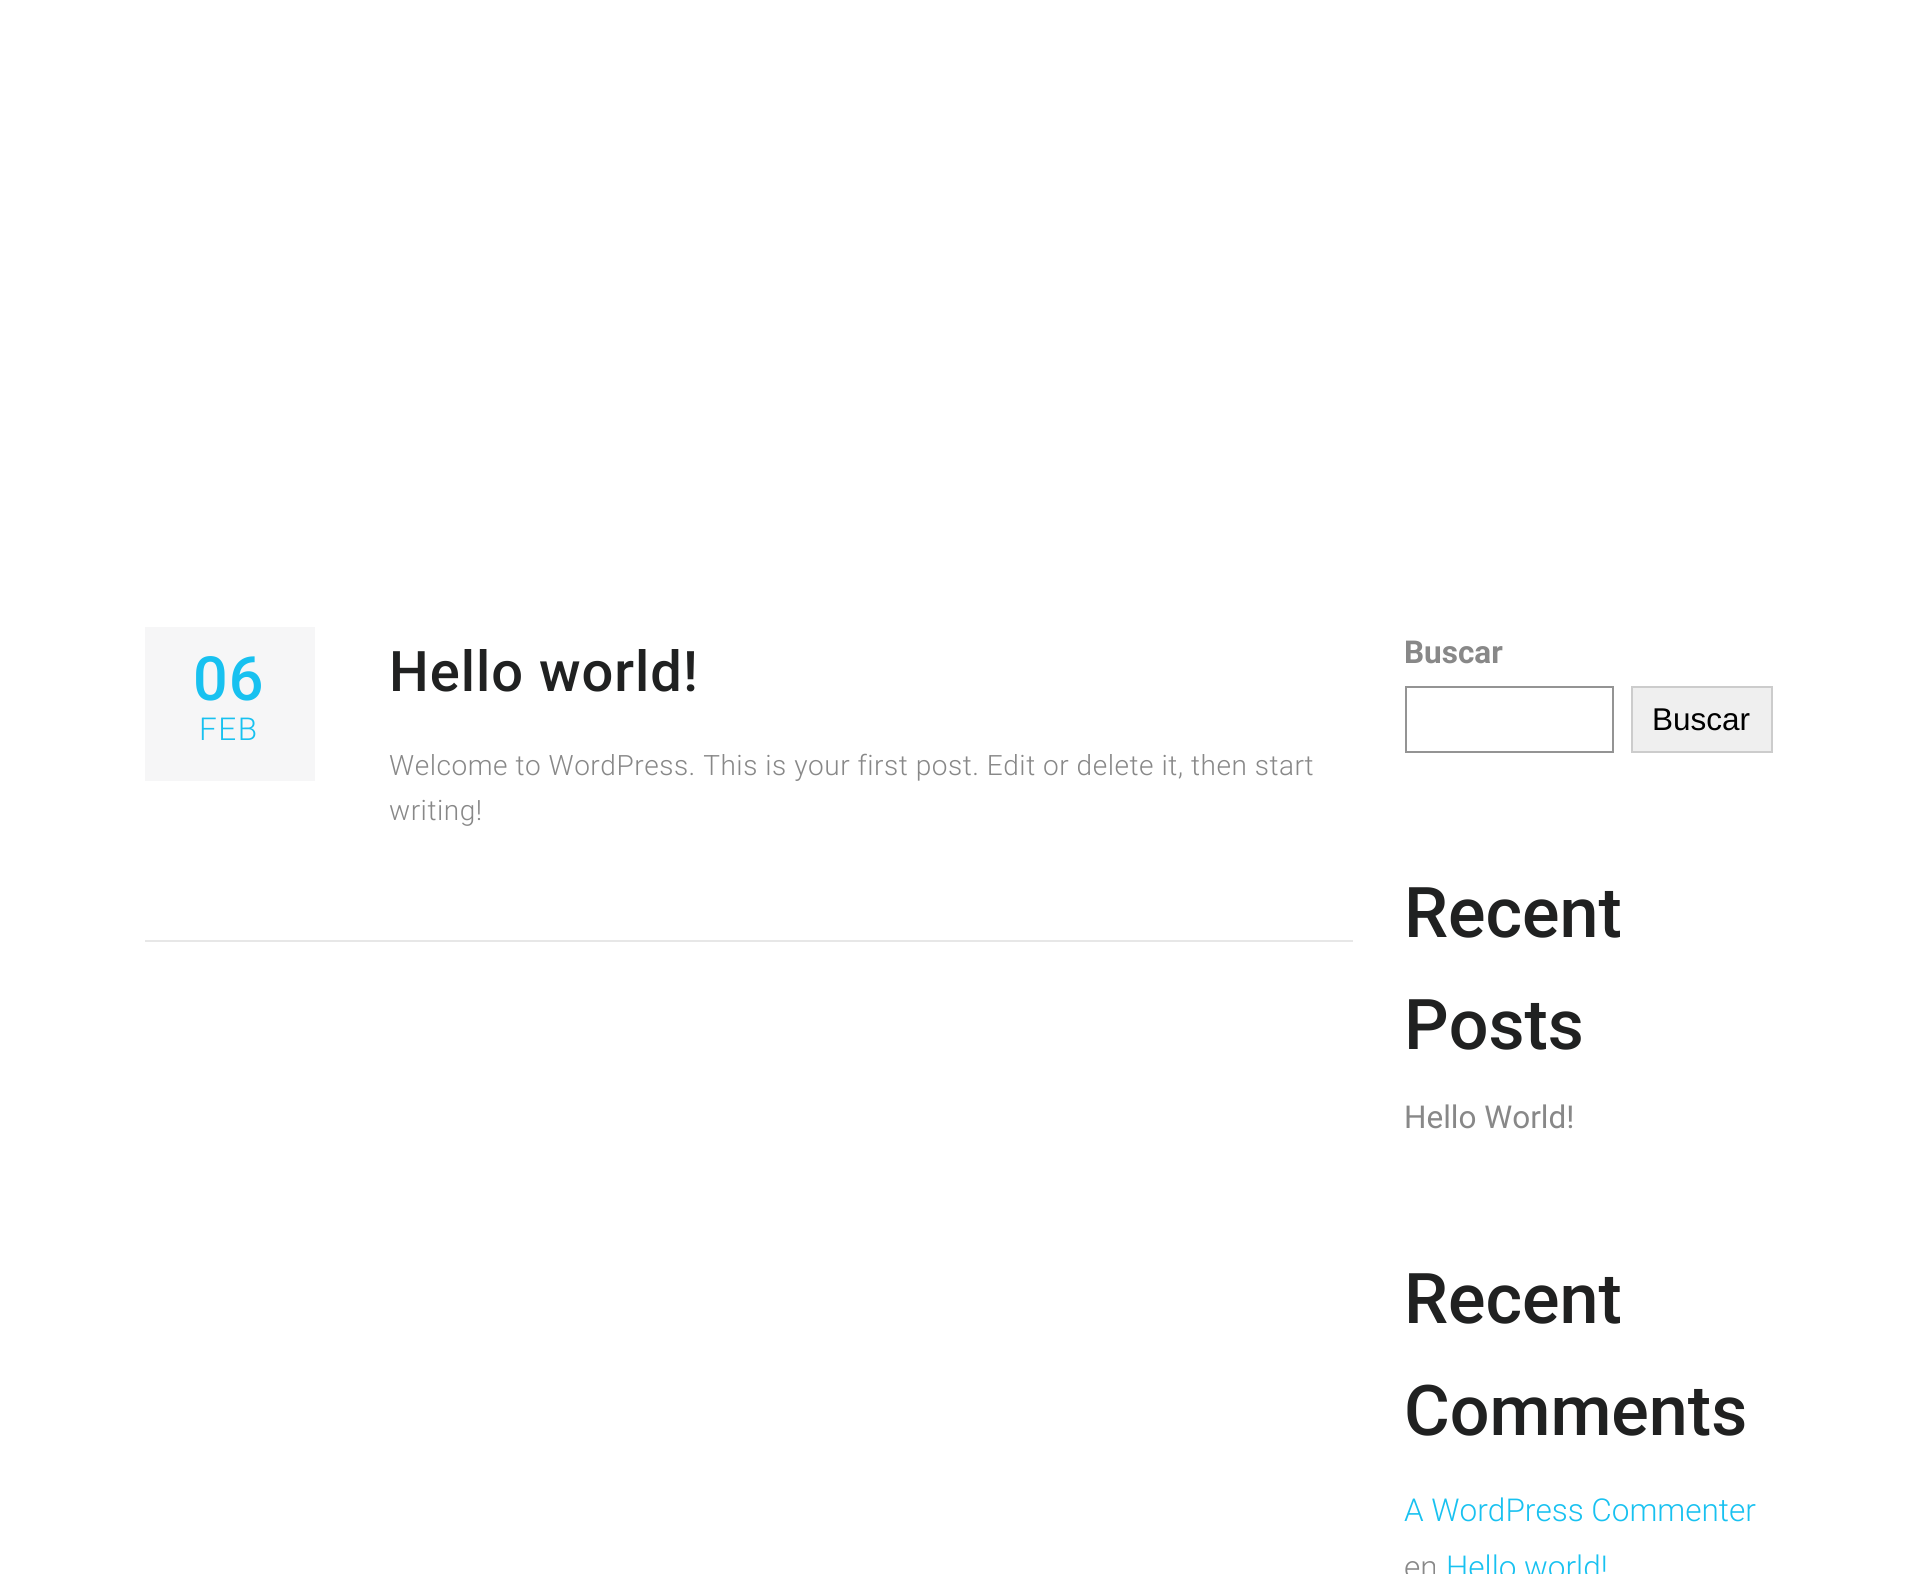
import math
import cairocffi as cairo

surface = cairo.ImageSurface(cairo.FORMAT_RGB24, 1915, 1574)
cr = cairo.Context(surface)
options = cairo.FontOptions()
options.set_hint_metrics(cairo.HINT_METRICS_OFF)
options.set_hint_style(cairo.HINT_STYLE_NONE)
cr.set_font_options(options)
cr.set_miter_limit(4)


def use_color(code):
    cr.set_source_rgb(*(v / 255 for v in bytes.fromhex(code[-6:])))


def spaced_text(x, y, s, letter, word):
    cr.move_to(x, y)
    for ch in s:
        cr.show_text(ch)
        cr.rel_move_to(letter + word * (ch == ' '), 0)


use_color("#ffffff")
cr.paint()
use_color("#e7e7e7")
cr.rectangle(145, 940, 1208, 2)
cr.fill()
use_color("#f6f6f7")
cr.rectangle(145, 627, 170, 154)
cr.fill()
cr.select_font_face("Roboto Medium")
cr.set_font_size(61)
use_color("#18c1f0")
spaced_text(193, 700, "06", 1, 0)
cr.select_font_face("Roboto Light")
cr.set_font_size(31.5)
spaced_text(199, 740, "FEB", 1.5, 0)
cr.select_font_face("Roboto Medium")
cr.set_font_size(56)
use_color("#202121")
spaced_text(389, 691, "Hello world!", 1, 0)
cr.select_font_face("Roboto Light")
cr.set_font_size(28)
use_color("#888888")
spaced_text(389, 775, "Welcome to WordPress. This is your first post. Edit or delete it, then start", 0.53, 0)
spaced_text(389, 820, "writing!", 0.53, 0)
cr.select_font_face("Roboto", cairo.FONT_SLANT_NORMAL, cairo.FONT_WEIGHT_BOLD)
cr.set_font_size(31.5)
cr.move_to(1404, 663)
cr.show_text("Buscar")
cr.rectangle(1406, 687, 207, 65)
use_color("#949494")
cr.stroke()
use_color("#efefef")
cr.rectangle(1632, 687, 140, 65)
cr.fill_preserve()
use_color("#cccccc")
cr.stroke()
cr.select_font_face("Liberation Sans")
use_color("#000000")
cr.move_to(1652, 730)
cr.show_text("Buscar")
cr.select_font_face("Roboto Medium")
cr.set_font_size(70)
use_color("#202121")
cr.move_to(1404, 937)
cr.show_text("Recent")
cr.move_to(1404, 1049)
cr.show_text("Posts")
cr.select_font_face("Roboto")
cr.set_font_size(31.5)
use_color("#888888")
cr.move_to(1404, 1128)
cr.show_text("Hello World!")
cr.select_font_face("Roboto Medium")
cr.set_font_size(70)
use_color("#202121")
cr.move_to(1404, 1323)
cr.show_text("Recent")
cr.move_to(1404, 1435)
cr.show_text("Comments")
cr.select_font_face("Roboto Light")
cr.set_font_size(31.5)
use_color("#18c1f0")
cr.move_to(1404, 1521)
cr.show_text("A WordPress Commenter")
use_color("#888888")
cr.move_to(1404, 1578)
cr.show_text("en")
use_color("#18c1f0")
cr.move_to(1446, 1578)
cr.show_text("Hello world!")
surface.write_to_png("result.png")
